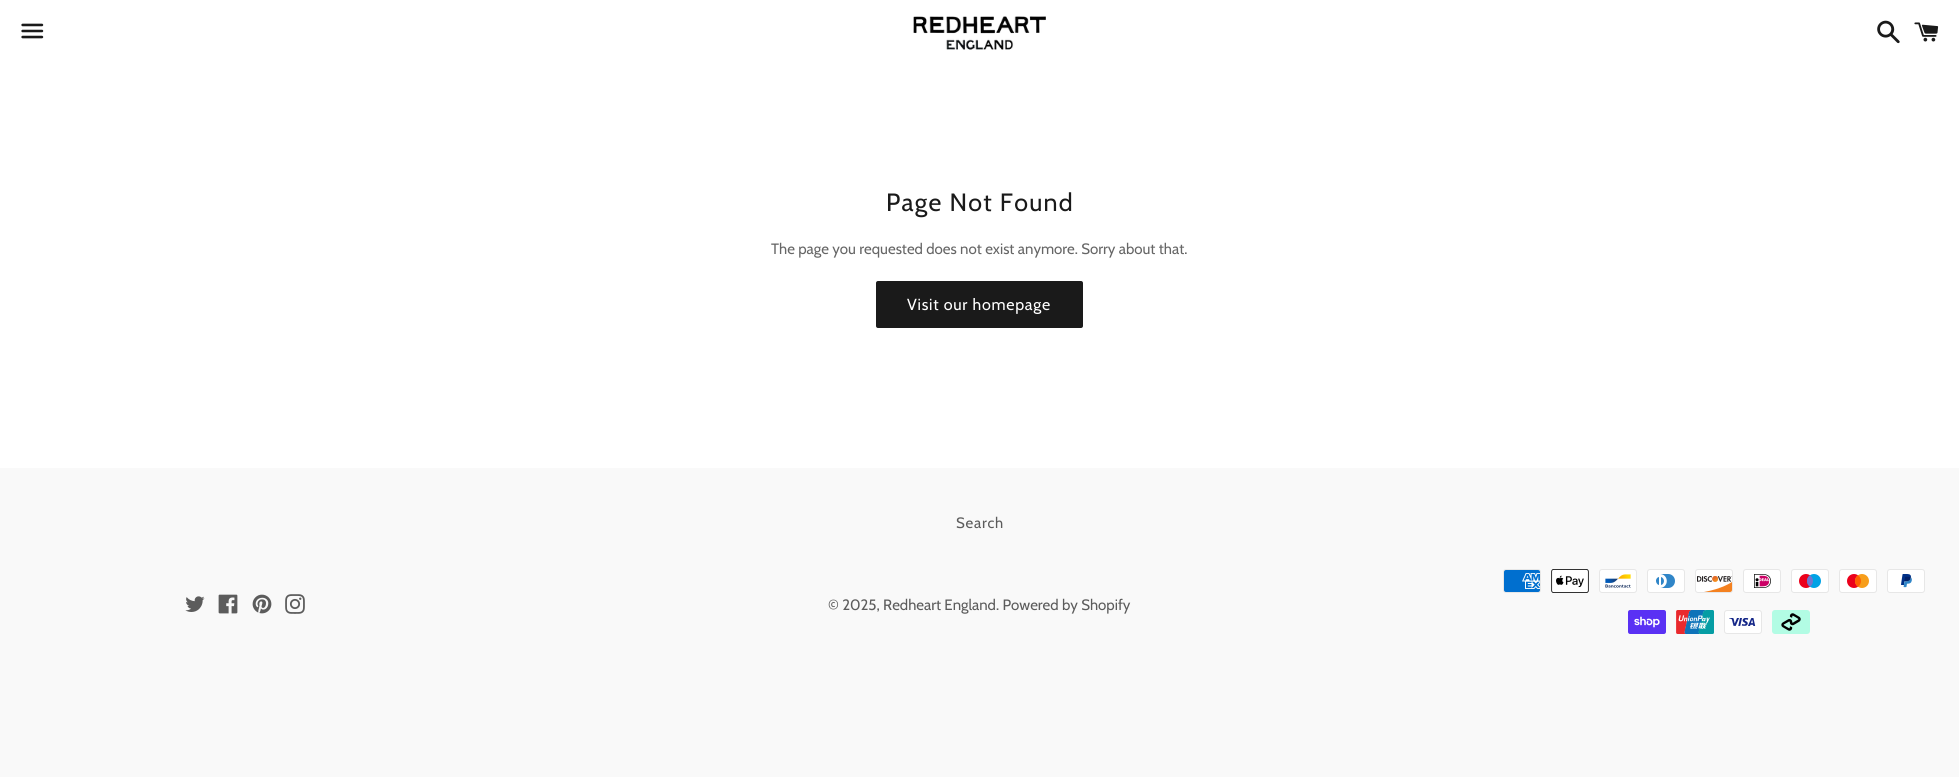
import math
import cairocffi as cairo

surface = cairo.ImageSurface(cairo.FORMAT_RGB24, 1959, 777)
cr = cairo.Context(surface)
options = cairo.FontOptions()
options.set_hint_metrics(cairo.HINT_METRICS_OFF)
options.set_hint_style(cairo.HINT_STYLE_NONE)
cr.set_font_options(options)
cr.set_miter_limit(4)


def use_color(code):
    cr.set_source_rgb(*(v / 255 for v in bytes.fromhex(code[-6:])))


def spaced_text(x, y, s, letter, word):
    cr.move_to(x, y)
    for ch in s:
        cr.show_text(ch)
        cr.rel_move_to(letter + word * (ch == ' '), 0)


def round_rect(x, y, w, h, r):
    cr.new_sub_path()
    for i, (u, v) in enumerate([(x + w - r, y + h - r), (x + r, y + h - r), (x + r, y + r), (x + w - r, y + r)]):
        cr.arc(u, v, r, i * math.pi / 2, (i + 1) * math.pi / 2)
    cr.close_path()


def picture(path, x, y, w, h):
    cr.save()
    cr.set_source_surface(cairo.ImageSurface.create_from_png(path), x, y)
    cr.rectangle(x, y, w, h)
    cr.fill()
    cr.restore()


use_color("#f9f9f9")
cr.paint()
use_color("#ffffff")
cr.rectangle(0, 0, 1959, 468)
cr.fill()
picture("img1.png", 21, 23, 23, 16)
picture("img2.png", 913, 16, 133, 34)
picture("img3.png", 1877, 20, 23, 24)
picture("img4.png", 1914, 22, 25, 20)
cr.select_font_face("Cabin")
cr.set_font_size(25)
use_color("#1a1a1a")
spaced_text(886, 211, "Page Not Found", 1.25, 0)
cr.set_font_size(15)
use_color("#666666")
cr.move_to(771, 254)
cr.show_text("The page you requested does not exist anymore. Sorry about that.")
use_color("#1a1a1a")
round_rect(876, 281, 207, 47, 2)
cr.fill()
cr.set_font_size(16)
use_color("#ffffff")
spaced_text(907, 310, "Visit our homepage", 0.75, 0)
cr.set_font_size(15)
use_color("#5c5c5c")
spaced_text(956, 528, "Search", 0.75, 0)
picture("img5.png", 185, 596, 20, 16)
picture("img6.png", 218, 594, 20, 20)
picture("img7.png", 252, 594, 20, 20)
picture("img8.png", 285, 594, 20, 20)
cr.move_to(828, 610)
cr.show_text("© 2025, Redheart England. Powered by Shopify")
picture("img9.png", 1503, 569, 38, 24)
picture("img10.png", 1551, 569, 38, 24)
picture("img11.png", 1599, 569, 38, 24)
picture("img12.png", 1647, 569, 38, 24)
picture("img13.png", 1695, 569, 38, 24)
picture("img14.png", 1743, 569, 38, 24)
picture("img15.png", 1791, 569, 38, 24)
picture("img16.png", 1839, 569, 38, 24)
picture("img17.png", 1887, 569, 38, 24)
picture("img18.png", 1628, 610, 38, 24)
picture("img19.png", 1676, 610, 38, 24)
picture("img20.png", 1724, 610, 38, 24)
picture("img21.png", 1772, 610, 38, 24)
surface.write_to_png("result.png")
